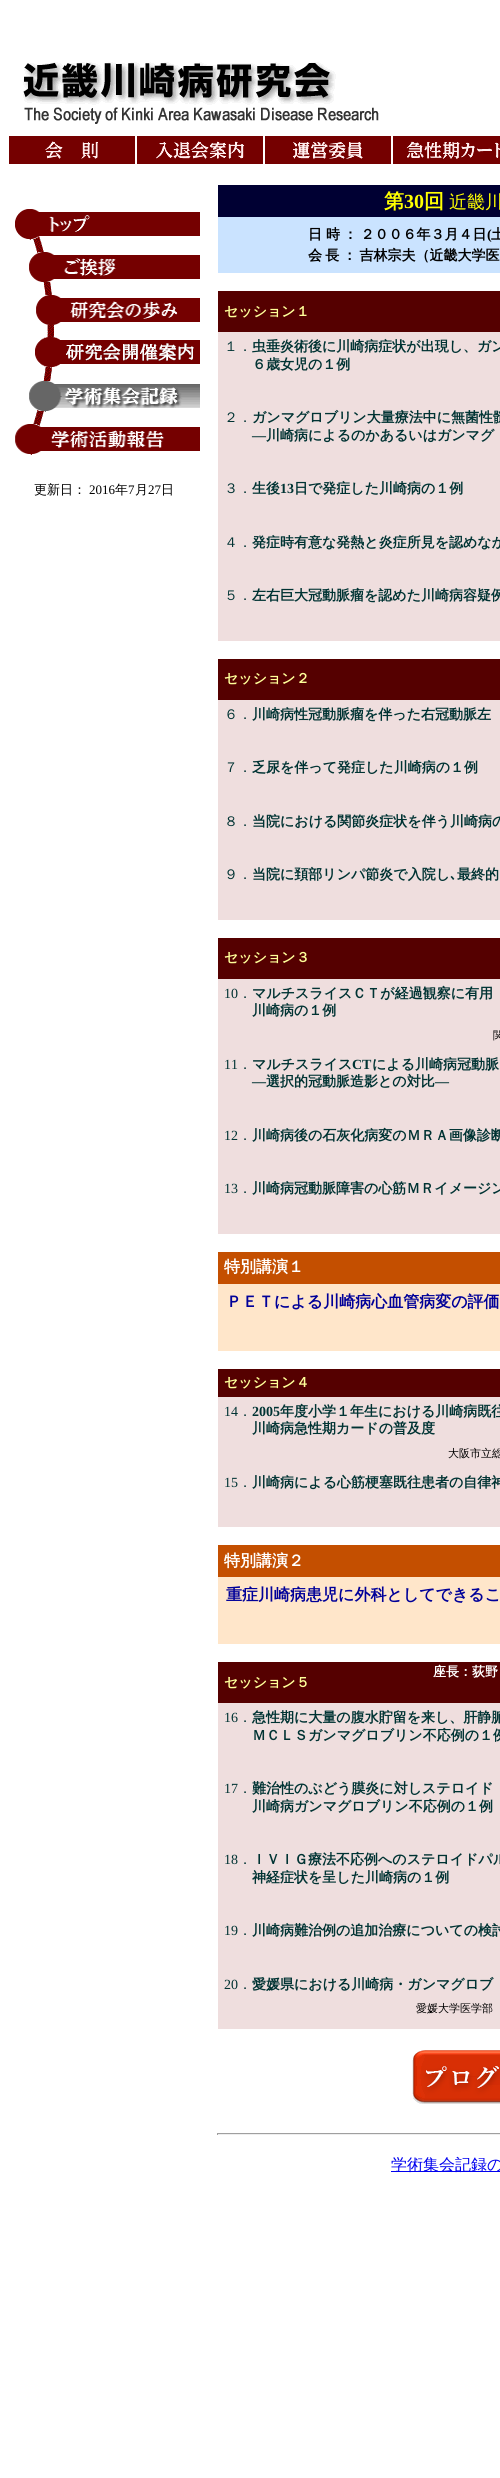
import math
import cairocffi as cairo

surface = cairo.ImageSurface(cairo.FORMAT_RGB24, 500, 2478)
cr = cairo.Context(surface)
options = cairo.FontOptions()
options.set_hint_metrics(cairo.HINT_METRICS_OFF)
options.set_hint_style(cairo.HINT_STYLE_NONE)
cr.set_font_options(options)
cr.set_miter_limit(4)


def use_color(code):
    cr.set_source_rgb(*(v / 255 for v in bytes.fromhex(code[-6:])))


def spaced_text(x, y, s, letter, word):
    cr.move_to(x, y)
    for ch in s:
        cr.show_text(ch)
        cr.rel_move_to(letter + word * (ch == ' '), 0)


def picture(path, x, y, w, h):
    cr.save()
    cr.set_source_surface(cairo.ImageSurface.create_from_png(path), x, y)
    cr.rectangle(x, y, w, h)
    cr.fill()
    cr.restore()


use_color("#ffffff")
cr.paint()
picture("img1.png", 23, 62, 356, 62)
picture("img2.png", 9, 136, 126, 28)
picture("img3.png", 137, 136, 126, 28)
picture("img4.png", 265, 136, 126, 28)
picture("img5.png", 393, 136, 107, 28)
picture("img6.png", 33, 236, 21, 190)
picture("img7.png", 15, 209, 185, 31)
picture("img8.png", 29, 252, 171, 31)
picture("img9.png", 36, 295, 164, 31)
picture("img10.png", 35, 337, 165, 31)
picture("img11.png", 29, 381, 171, 31)
picture("img12.png", 15, 424, 185, 31)
cr.select_font_face("WenQuanYi Zen Hei Medium")
cr.set_font_size(13)
use_color("#000000")
cr.move_to(34, 494)
cr.show_text("更新日：")
cr.select_font_face("Liberation Serif")
cr.move_to(89, 494)
cr.show_text("2016")
cr.select_font_face("WenQuanYi Zen Hei Medium")
cr.move_to(115, 494)
cr.show_text("年")
cr.select_font_face("Liberation Serif")
cr.move_to(128, 494)
cr.show_text("7")
cr.select_font_face("WenQuanYi Zen Hei Medium")
cr.move_to(135, 494)
cr.show_text("月")
cr.select_font_face("Liberation Serif")
cr.move_to(148, 494)
cr.show_text("27")
cr.select_font_face("WenQuanYi Zen Hei Medium")
cr.move_to(161, 494)
cr.show_text("日")
use_color("#000033")
cr.rectangle(218, 185, 282, 32)
cr.fill()
cr.select_font_face("WenQuanYi Zen Hei", cairo.FONT_SLANT_NORMAL, cairo.FONT_WEIGHT_BOLD)
cr.set_font_size(20)
use_color("#ffff00")
cr.move_to(384, 208)
cr.show_text("第")
cr.select_font_face("Liberation Serif", cairo.FONT_SLANT_NORMAL, cairo.FONT_WEIGHT_BOLD)
cr.move_to(404, 208)
cr.show_text("30")
cr.select_font_face("WenQuanYi Zen Hei", cairo.FONT_SLANT_NORMAL, cairo.FONT_WEIGHT_BOLD)
cr.move_to(424, 208)
cr.show_text("回")
cr.select_font_face("WenQuanYi Zen Hei Medium")
cr.set_font_size(18)
cr.move_to(449, 208)
cr.show_text("近畿川")
use_color("#cae3ff")
cr.rectangle(218, 217, 282, 56)
cr.fill()
cr.select_font_face("WenQuanYi Zen Hei", cairo.FONT_SLANT_NORMAL, cairo.FONT_WEIGHT_BOLD)
cr.set_font_size(14)
use_color("#000000")
cr.move_to(308, 239)
cr.show_text("日")
spaced_text(326, 239, "時 ： ２００６年３月４日", 0, -1)
cr.select_font_face("Liberation Serif", cairo.FONT_SLANT_NORMAL, cairo.FONT_WEIGHT_BOLD)
cr.move_to(487, 239)
cr.show_text("(")
cr.select_font_face("WenQuanYi Zen Hei", cairo.FONT_SLANT_NORMAL, cairo.FONT_WEIGHT_BOLD)
cr.move_to(491, 239)
cr.show_text("土")
spaced_text(308, 260, "会 長 ： 吉林宗夫（近畿大学医", 0, -1)
use_color("#550000")
cr.rectangle(218, 291, 282, 41)
cr.fill()
use_color("#ffff99")
cr.move_to(224, 316)
cr.show_text("セッション１")
use_color("#efdede")
cr.rectangle(218, 332, 282, 309)
cr.fill()
cr.select_font_face("WenQuanYi Zen Hei Medium")
use_color("#003333")
cr.move_to(224, 351)
cr.show_text("１．")
cr.select_font_face("WenQuanYi Zen Hei", cairo.FONT_SLANT_NORMAL, cairo.FONT_WEIGHT_BOLD)
cr.move_to(252, 351)
cr.show_text("虫垂炎術後に川崎病症状が出現し、ガン")
cr.move_to(252, 369)
cr.show_text("６歳女児の１例")
cr.select_font_face("WenQuanYi Zen Hei Medium")
cr.move_to(224, 422)
cr.show_text("２．")
cr.select_font_face("WenQuanYi Zen Hei", cairo.FONT_SLANT_NORMAL, cairo.FONT_WEIGHT_BOLD)
cr.move_to(252, 422)
cr.show_text("ガンマグロブリン大量療法中に無菌性髄")
cr.select_font_face("Liberation Serif", cairo.FONT_SLANT_NORMAL, cairo.FONT_WEIGHT_BOLD)
cr.move_to(252, 440)
cr.show_text("―")
cr.select_font_face("WenQuanYi Zen Hei", cairo.FONT_SLANT_NORMAL, cairo.FONT_WEIGHT_BOLD)
cr.move_to(266, 440)
cr.show_text("川崎病によるのかあるいはガンマグ")
cr.select_font_face("WenQuanYi Zen Hei Medium")
cr.move_to(224, 493)
cr.show_text("３．")
cr.select_font_face("WenQuanYi Zen Hei", cairo.FONT_SLANT_NORMAL, cairo.FONT_WEIGHT_BOLD)
cr.move_to(252, 493)
cr.show_text("生後")
cr.select_font_face("Liberation Serif", cairo.FONT_SLANT_NORMAL, cairo.FONT_WEIGHT_BOLD)
cr.move_to(280, 493)
cr.show_text("13")
cr.select_font_face("WenQuanYi Zen Hei", cairo.FONT_SLANT_NORMAL, cairo.FONT_WEIGHT_BOLD)
cr.move_to(294, 493)
cr.show_text("日で発症した川崎病の１例")
cr.select_font_face("WenQuanYi Zen Hei Medium")
cr.move_to(224, 547)
cr.show_text("４．")
cr.select_font_face("WenQuanYi Zen Hei", cairo.FONT_SLANT_NORMAL, cairo.FONT_WEIGHT_BOLD)
cr.move_to(252, 547)
cr.show_text("発症時有意な発熱と炎症所見を認めなか")
cr.select_font_face("WenQuanYi Zen Hei Medium")
cr.move_to(224, 600)
cr.show_text("５．")
cr.select_font_face("WenQuanYi Zen Hei", cairo.FONT_SLANT_NORMAL, cairo.FONT_WEIGHT_BOLD)
cr.move_to(252, 600)
cr.show_text("左右巨大冠動脈瘤を認めた川崎病容疑例")
use_color("#550000")
cr.rectangle(218, 659, 282, 41)
cr.fill()
use_color("#ffff99")
cr.move_to(224, 683)
cr.show_text("セッション２")
use_color("#efdede")
cr.rectangle(218, 700, 282, 220)
cr.fill()
cr.select_font_face("WenQuanYi Zen Hei Medium")
use_color("#003333")
cr.move_to(224, 719)
cr.show_text("６．")
cr.select_font_face("WenQuanYi Zen Hei", cairo.FONT_SLANT_NORMAL, cairo.FONT_WEIGHT_BOLD)
cr.move_to(252, 719)
cr.show_text("川崎病性冠動脈瘤を伴った右冠動脈左")
cr.select_font_face("WenQuanYi Zen Hei Medium")
cr.move_to(224, 772)
cr.show_text("７．")
cr.select_font_face("WenQuanYi Zen Hei", cairo.FONT_SLANT_NORMAL, cairo.FONT_WEIGHT_BOLD)
cr.move_to(252, 772)
cr.show_text("乏尿を伴って発症した川崎病の１例")
cr.select_font_face("WenQuanYi Zen Hei Medium")
cr.move_to(224, 826)
cr.show_text("８．")
cr.select_font_face("WenQuanYi Zen Hei", cairo.FONT_SLANT_NORMAL, cairo.FONT_WEIGHT_BOLD)
cr.move_to(252, 826)
cr.show_text("当院における関節炎症状を伴う川崎病の")
cr.select_font_face("WenQuanYi Zen Hei Medium")
cr.move_to(224, 879)
cr.show_text("９．")
cr.select_font_face("WenQuanYi Zen Hei", cairo.FONT_SLANT_NORMAL, cairo.FONT_WEIGHT_BOLD)
cr.move_to(252, 879)
cr.show_text("当院に頚部リンパ節炎で入院し")
cr.select_font_face("IPAGothic", cairo.FONT_SLANT_NORMAL, cairo.FONT_WEIGHT_BOLD)
cr.move_to(450, 879)
cr.show_text("､")
cr.select_font_face("WenQuanYi Zen Hei", cairo.FONT_SLANT_NORMAL, cairo.FONT_WEIGHT_BOLD)
cr.move_to(457, 879)
cr.show_text("最終的")
use_color("#550000")
cr.rectangle(218, 938, 282, 41)
cr.fill()
use_color("#ffff99")
cr.move_to(224, 962)
cr.show_text("セッション３")
use_color("#efdede")
cr.rectangle(218, 979, 282, 255)
cr.fill()
cr.select_font_face("Liberation Serif")
use_color("#003333")
cr.move_to(224, 998)
cr.show_text("10")
cr.select_font_face("WenQuanYi Zen Hei Medium")
cr.move_to(238, 998)
cr.show_text("．")
cr.select_font_face("WenQuanYi Zen Hei", cairo.FONT_SLANT_NORMAL, cairo.FONT_WEIGHT_BOLD)
cr.move_to(252, 998)
cr.show_text("マルチスライスＣＴが経過観察に有用")
cr.move_to(252, 1015)
cr.show_text("川崎病の１例")
cr.select_font_face("WenQuanYi Zen Hei Medium")
cr.set_font_size(11)
use_color("#000000")
spaced_text(493, 1039, "関", 0, -1)
cr.select_font_face("Liberation Serif")
cr.set_font_size(14)
use_color("#003333")
cr.move_to(224, 1069)
cr.show_text("11")
cr.select_font_face("WenQuanYi Zen Hei Medium")
cr.move_to(238, 1069)
cr.show_text("．")
cr.select_font_face("WenQuanYi Zen Hei", cairo.FONT_SLANT_NORMAL, cairo.FONT_WEIGHT_BOLD)
cr.move_to(252, 1069)
cr.show_text("マルチスライス")
cr.select_font_face("Liberation Serif", cairo.FONT_SLANT_NORMAL, cairo.FONT_WEIGHT_BOLD)
cr.move_to(352, 1069)
cr.show_text("CT")
cr.select_font_face("WenQuanYi Zen Hei", cairo.FONT_SLANT_NORMAL, cairo.FONT_WEIGHT_BOLD)
cr.move_to(372, 1069)
cr.show_text("による川崎病冠動脈")
cr.select_font_face("Liberation Serif", cairo.FONT_SLANT_NORMAL, cairo.FONT_WEIGHT_BOLD)
cr.move_to(252, 1086)
cr.show_text("―")
cr.select_font_face("WenQuanYi Zen Hei", cairo.FONT_SLANT_NORMAL, cairo.FONT_WEIGHT_BOLD)
cr.move_to(266, 1086)
cr.show_text("選択的冠動脈造影との対比")
cr.select_font_face("Liberation Serif", cairo.FONT_SLANT_NORMAL, cairo.FONT_WEIGHT_BOLD)
cr.move_to(435, 1086)
cr.show_text("―")
cr.select_font_face("Liberation Serif")
cr.move_to(224, 1140)
cr.show_text("12")
cr.select_font_face("WenQuanYi Zen Hei Medium")
cr.move_to(238, 1140)
cr.show_text("．")
cr.select_font_face("WenQuanYi Zen Hei", cairo.FONT_SLANT_NORMAL, cairo.FONT_WEIGHT_BOLD)
cr.move_to(252, 1140)
cr.show_text("川崎病後の石灰化病変のＭＲＡ画像診断")
cr.select_font_face("Liberation Serif")
cr.move_to(224, 1193)
cr.show_text("13")
cr.select_font_face("WenQuanYi Zen Hei Medium")
cr.move_to(238, 1193)
cr.show_text("．")
cr.select_font_face("WenQuanYi Zen Hei", cairo.FONT_SLANT_NORMAL, cairo.FONT_WEIGHT_BOLD)
cr.move_to(252, 1193)
cr.show_text("川崎病冠動脈障害の心筋ＭＲイメージン")
use_color("#c44f00")
cr.rectangle(218, 1252, 282, 32)
cr.fill()
cr.set_font_size(16)
use_color("#ffffff")
cr.move_to(224, 1272)
cr.show_text("特別講演１")
use_color("#ffe6ca")
cr.rectangle(218, 1284, 282, 67)
cr.fill()
use_color("#000099")
cr.move_to(226, 1307)
cr.show_text("ＰＥＴによる川崎病心血管病変の評価")
use_color("#550000")
cr.rectangle(218, 1369, 282, 28)
cr.fill()
cr.set_font_size(14)
use_color("#ffff99")
cr.move_to(224, 1387)
cr.show_text("セッション４")
use_color("#efdede")
cr.rectangle(218, 1397, 282, 130)
cr.fill()
cr.select_font_face("Liberation Serif")
use_color("#003333")
cr.move_to(224, 1416)
cr.show_text("14")
cr.select_font_face("WenQuanYi Zen Hei Medium")
cr.move_to(238, 1416)
cr.show_text("．")
cr.select_font_face("Liberation Serif", cairo.FONT_SLANT_NORMAL, cairo.FONT_WEIGHT_BOLD)
cr.move_to(252, 1416)
cr.show_text("2005")
cr.select_font_face("WenQuanYi Zen Hei", cairo.FONT_SLANT_NORMAL, cairo.FONT_WEIGHT_BOLD)
cr.move_to(280, 1416)
cr.show_text("年度小学１年生における川崎病既往")
cr.move_to(252, 1433)
cr.show_text("川崎病急性期カードの普及度")
cr.select_font_face("WenQuanYi Zen Hei Medium")
cr.set_font_size(11)
use_color("#000000")
spaced_text(448, 1457, "大阪市立総", 0, -1)
cr.select_font_face("Liberation Serif")
cr.set_font_size(14)
use_color("#003333")
cr.move_to(224, 1487)
cr.show_text("15")
cr.select_font_face("WenQuanYi Zen Hei Medium")
cr.move_to(238, 1487)
cr.show_text("．")
cr.select_font_face("WenQuanYi Zen Hei", cairo.FONT_SLANT_NORMAL, cairo.FONT_WEIGHT_BOLD)
cr.move_to(252, 1487)
cr.show_text("川崎病による心筋梗塞既往患者の自律神")
use_color("#c44f00")
cr.rectangle(218, 1545, 282, 32)
cr.fill()
cr.set_font_size(16)
use_color("#ffffff")
cr.move_to(224, 1566)
cr.show_text("特別講演２")
use_color("#ffe6ca")
cr.rectangle(218, 1577, 282, 67)
cr.fill()
use_color("#000099")
cr.move_to(226, 1600)
cr.show_text("重症川崎病患児に外科としてできるこ")
use_color("#550000")
cr.rectangle(218, 1662, 282, 41)
cr.fill()
cr.set_font_size(13)
use_color("#ffffff")
cr.move_to(433, 1676)
cr.show_text("座長：荻野")
cr.set_font_size(14)
use_color("#ffff99")
cr.move_to(224, 1687)
cr.show_text("セッション５")
use_color("#efdede")
cr.rectangle(218, 1703, 282, 326)
cr.fill()
cr.select_font_face("Liberation Serif")
use_color("#003333")
cr.move_to(224, 1722)
cr.show_text("16")
cr.select_font_face("WenQuanYi Zen Hei Medium")
cr.move_to(238, 1722)
cr.show_text("．")
cr.select_font_face("WenQuanYi Zen Hei", cairo.FONT_SLANT_NORMAL, cairo.FONT_WEIGHT_BOLD)
cr.move_to(252, 1722)
cr.show_text("急性期に大量の腹水貯留を来し、肝静脈")
cr.move_to(252, 1740)
cr.show_text("ＭＣＬＳガンマグロブリン不応例の１例")
cr.select_font_face("Liberation Serif")
cr.move_to(224, 1793)
cr.show_text("17")
cr.select_font_face("WenQuanYi Zen Hei Medium")
cr.move_to(238, 1793)
cr.show_text("．")
cr.select_font_face("WenQuanYi Zen Hei", cairo.FONT_SLANT_NORMAL, cairo.FONT_WEIGHT_BOLD)
cr.move_to(252, 1793)
cr.show_text("難治性のぶどう膜炎に対しステロイド")
cr.move_to(252, 1811)
cr.show_text("川崎病ガンマグロブリン不応例の１例")
cr.select_font_face("Liberation Serif")
cr.move_to(224, 1864)
cr.show_text("18")
cr.select_font_face("WenQuanYi Zen Hei Medium")
cr.move_to(238, 1864)
cr.show_text("．")
cr.select_font_face("WenQuanYi Zen Hei", cairo.FONT_SLANT_NORMAL, cairo.FONT_WEIGHT_BOLD)
cr.move_to(252, 1864)
cr.show_text("ＩＶＩＧ療法不応例へのステロイドパル")
cr.move_to(252, 1882)
cr.show_text("神経症状を呈した川崎病の１例")
cr.select_font_face("Liberation Serif")
cr.move_to(224, 1935)
cr.show_text("19")
cr.select_font_face("WenQuanYi Zen Hei Medium")
cr.move_to(238, 1935)
cr.show_text("．")
cr.select_font_face("WenQuanYi Zen Hei", cairo.FONT_SLANT_NORMAL, cairo.FONT_WEIGHT_BOLD)
cr.move_to(252, 1935)
cr.show_text("川崎病難治例の追加治療についての検討")
cr.select_font_face("Liberation Serif")
cr.move_to(224, 1989)
cr.show_text("20")
cr.select_font_face("WenQuanYi Zen Hei Medium")
cr.move_to(238, 1989)
cr.show_text("．")
cr.select_font_face("WenQuanYi Zen Hei", cairo.FONT_SLANT_NORMAL, cairo.FONT_WEIGHT_BOLD)
cr.move_to(252, 1989)
cr.show_text("愛媛県における川崎病・ガンマグロブ")
cr.select_font_face("WenQuanYi Zen Hei Medium")
cr.set_font_size(11)
use_color("#000000")
spaced_text(416, 2012, "愛媛大学医学部", 0, -1)
picture("img13.png", 412, 2050, 88, 54)
use_color("#9f9f9f")
cr.rectangle(217, 2133, 283, 1)
cr.fill()
use_color("#eeeeee")
cr.rectangle(217, 2134, 283, 1)
cr.fill()
use_color("#9f9f9f")
cr.rectangle(217, 2133, 1, 2)
cr.fill()
use_color("#0000ee")
cr.rectangle(391, 2171, 109, 1)
cr.fill()
cr.set_font_size(16)
cr.move_to(391, 2170)
cr.show_text("学術集会記録の")
surface.write_to_png("result.png")
